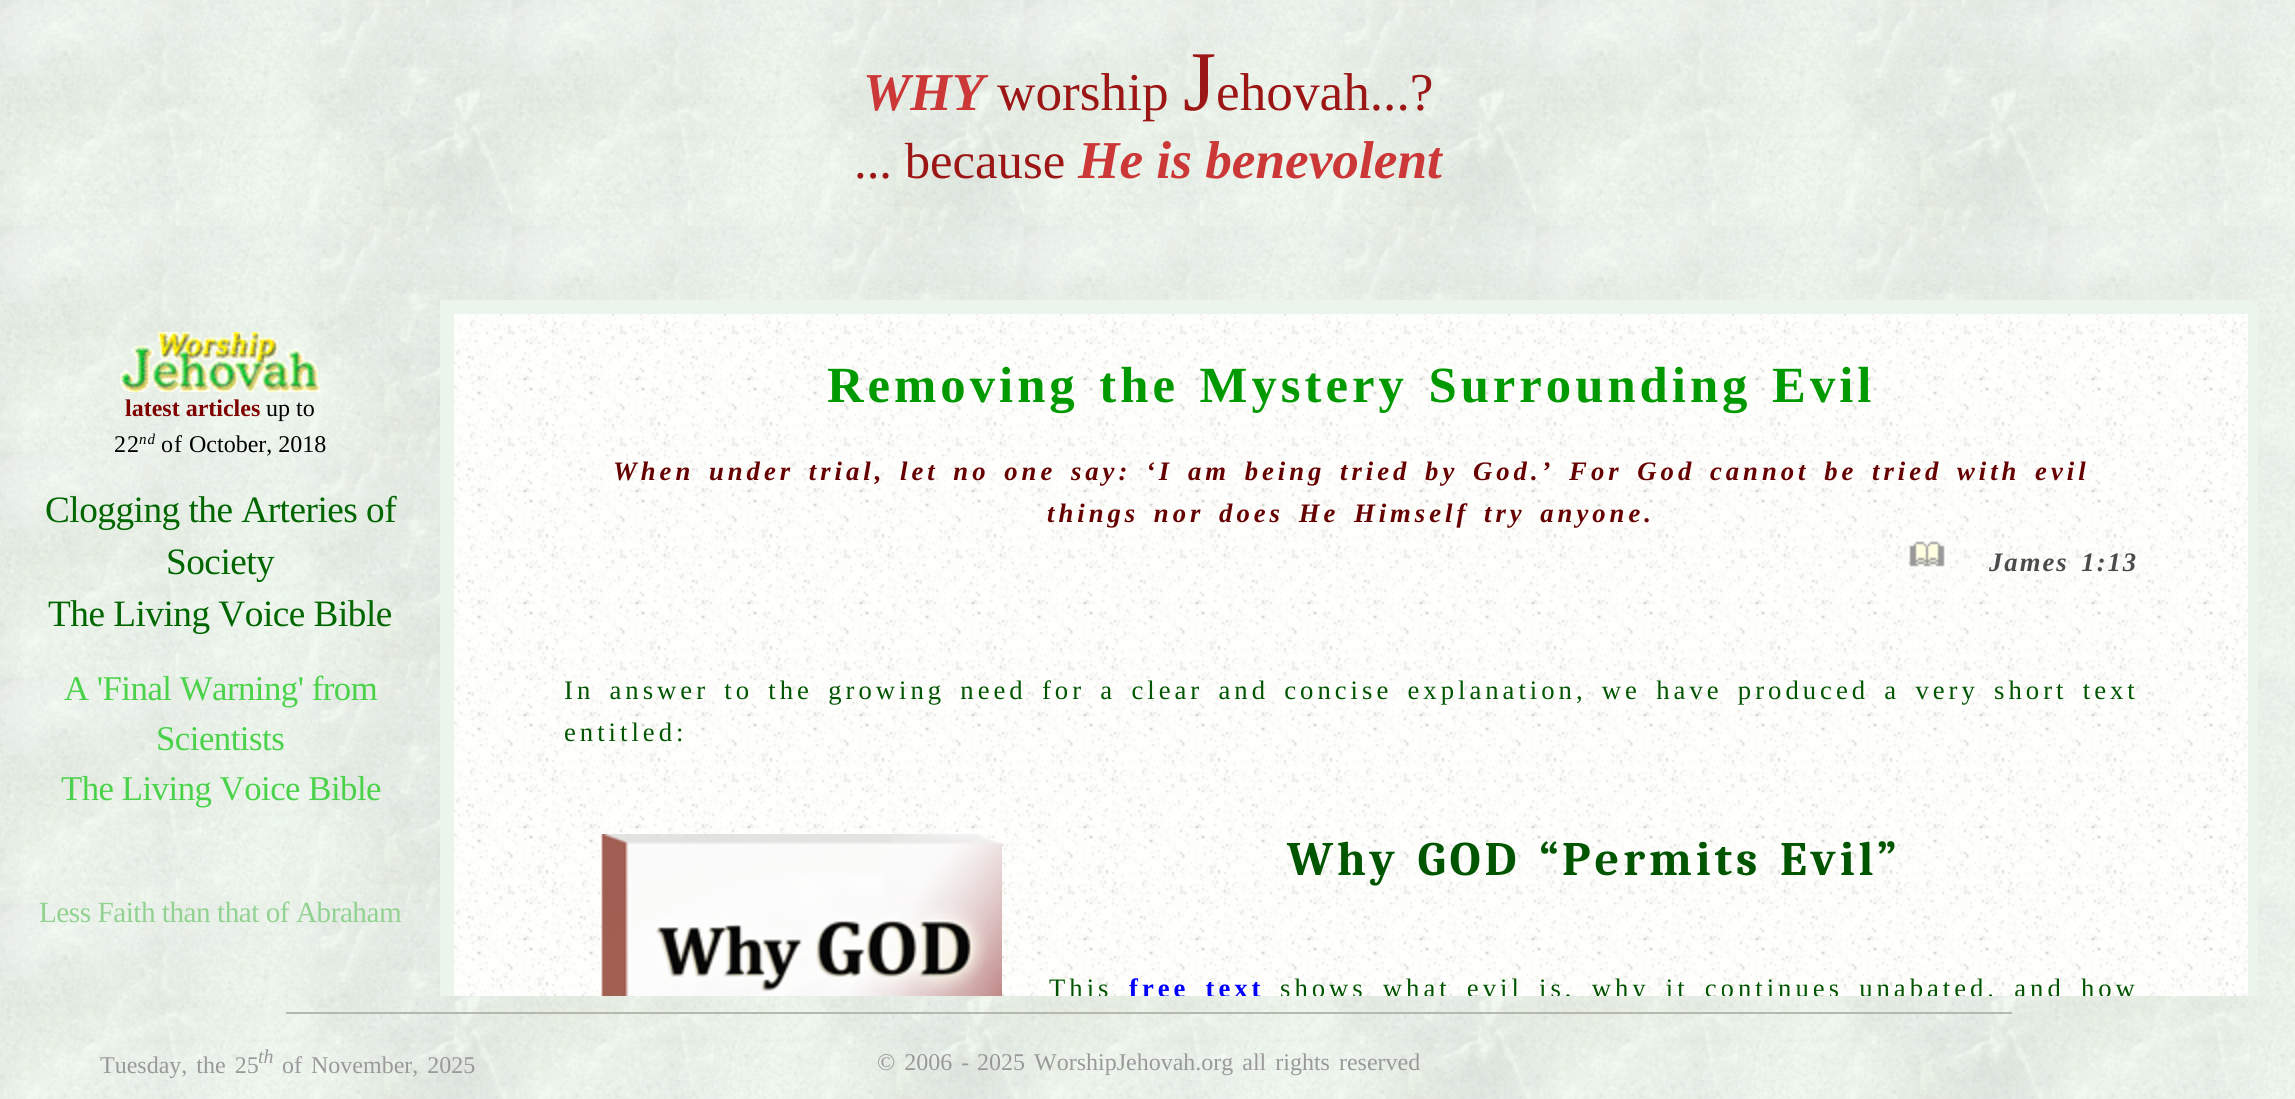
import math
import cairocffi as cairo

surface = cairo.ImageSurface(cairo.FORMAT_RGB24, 2295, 1099)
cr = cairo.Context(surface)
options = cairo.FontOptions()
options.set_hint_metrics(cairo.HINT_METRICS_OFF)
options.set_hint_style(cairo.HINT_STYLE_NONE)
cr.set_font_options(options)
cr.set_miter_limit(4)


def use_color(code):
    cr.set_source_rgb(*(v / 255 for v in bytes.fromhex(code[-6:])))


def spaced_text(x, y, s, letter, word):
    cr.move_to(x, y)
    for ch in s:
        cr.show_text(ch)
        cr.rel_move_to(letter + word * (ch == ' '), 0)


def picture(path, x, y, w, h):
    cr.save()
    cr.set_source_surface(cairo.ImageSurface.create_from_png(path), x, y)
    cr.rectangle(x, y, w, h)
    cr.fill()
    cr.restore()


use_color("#ffffff")
cr.paint()
picture("img1.png", 0, 0, 2295, 1099)
cr.select_font_face("Liberation Serif", cairo.FONT_SLANT_ITALIC, cairo.FONT_WEIGHT_BOLD)
cr.set_font_size(53.25)
use_color("#cc3737")
cr.move_to(863, 110)
cr.show_text("WHY")
cr.select_font_face("Liberation Serif")
use_color("#9c1616")
cr.move_to(997, 110)
cr.show_text("worship")
cr.set_font_size(85)
cr.move_to(1183, 110)
cr.show_text("J")
cr.set_font_size(53.25)
cr.move_to(1216, 110)
cr.show_text("ehovah...?")
cr.set_font_size(50.7)
cr.move_to(854, 178)
cr.show_text("... because")
cr.select_font_face("Liberation Serif", cairo.FONT_SLANT_ITALIC, cairo.FONT_WEIGHT_BOLD)
cr.set_font_size(53.25)
use_color("#cc3737")
cr.move_to(1078, 178)
cr.show_text("He is benevolent")
picture("img2.png", 454, 314, 1794, 682)
use_color("#ebf5eb")
cr.rectangle(454, 300, 1794, 14)
cr.fill()
cr.rectangle(2248, 300, 10, 696)
cr.fill()
cr.rectangle(440, 300, 14, 696)
cr.fill()
cr.select_font_face("Liberation Serif", cairo.FONT_SLANT_NORMAL, cairo.FONT_WEIGHT_BOLD)
cr.set_font_size(50.7)
use_color("#009900")
spaced_text(827, 402, "Removing the Mystery Surrounding Evil", 4, 4)
cr.select_font_face("Liberation Serif", cairo.FONT_SLANT_ITALIC, cairo.FONT_WEIGHT_BOLD)
cr.set_font_size(26.67)
use_color("#660000")
spaced_text(613, 480, "When under trial, let no one say: ‘I am being tried by God.’ For God cannot be tried with evil", 4, 4)
spaced_text(1047, 522, "things nor does He Himself try anyone.", 4, 4)
picture("img3.png", 1909, 541, 36, 26)
use_color("#4b4b4b")
spaced_text(1989, 571, "James 1:13", 2, 4)
cr.select_font_face("Liberation Serif")
use_color("#005500")
spaced_text(564, 699, "In answer to the growing need for a clear and concise explanation, we have produced a very short text", 4, 4.6)
spaced_text(564, 741, "entitled:", 4, 0)
picture("img4.png", 601, 834, 401, 162)
cr.select_font_face("Caladea", cairo.FONT_SLANT_NORMAL, cairo.FONT_WEIGHT_BOLD)
cr.set_font_size(48)
spaced_text(1287, 875, "Why GOD “Permits Evil”", 4, 4)
cr.save()
cr.rectangle(440, 300, 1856, 696)
cr.clip()
cr.select_font_face("Liberation Serif")
cr.set_font_size(26.67)
spaced_text(1049, 997, "This", 4, 0)
cr.select_font_face("Liberation Serif", cairo.FONT_SLANT_NORMAL, cairo.FONT_WEIGHT_BOLD)
use_color("#0000ff")
spaced_text(1129, 997, "free text", 4, 5.5)
cr.select_font_face("Liberation Serif")
use_color("#005500")
spaced_text(1280, 997, "shows what evil is, why it continues unabated, and how", 4, 5.5)
cr.restore()
use_color("#b5b8ac")
cr.rectangle(286, 1012, 1726, 2)
cr.fill()
cr.select_font_face("Liberation Serif")
cr.set_font_size(24)
use_color("#999999")
spaced_text(100, 1073, "Tuesday, the 25", 0, 3)
cr.select_font_face("Liberation Serif", cairo.FONT_SLANT_ITALIC)
cr.set_font_size(20)
cr.move_to(258, 1063)
cr.show_text("th")
cr.select_font_face("Liberation Serif")
cr.set_font_size(24)
spaced_text(282, 1073, "of November, 2025", 0, 3)
spaced_text(877, 1070, "© 2006 -", 0, 3)
cr.move_to(977, 1070)
cr.show_text("2025")
spaced_text(1034, 1070, "WorshipJehovah.org all rights reserved", 0, 3)
picture("img5.png", 120, 332, 200, 60)
cr.select_font_face("Liberation Serif", cairo.FONT_SLANT_NORMAL, cairo.FONT_WEIGHT_BOLD)
use_color("#800000")
cr.move_to(125, 416)
cr.show_text("latest articles")
cr.select_font_face("Liberation Serif")
use_color("#000000")
cr.move_to(266, 416)
cr.show_text("up to")
spaced_text(114, 452, "22", 1, 0)
cr.select_font_face("Liberation Serif", cairo.FONT_SLANT_ITALIC)
cr.set_font_size(15)
spaced_text(139, 444, "nd", 1, 0)
cr.select_font_face("Liberation Serif")
cr.set_font_size(24)
spaced_text(161, 452, "of", 1, 0)
cr.move_to(189, 452)
cr.show_text("October, 2018")
cr.set_font_size(37.25)
use_color("#006600")
spaced_text(45, 522, "Clogging the Arteries of", -0.5, 0)
spaced_text(166, 574, "Society", -0.5, 0)
spaced_text(48, 626, "The Living Voice Bible", -0.5, 0)
cr.set_font_size(34.75)
use_color("#4bd24b")
spaced_text(64, 700, "A 'Final Warning' from", -0.5, 0)
spaced_text(156, 750, "Scientists", -0.5, 0)
spaced_text(61, 800, "The Living Voice Bible", -0.5, 0)
cr.set_font_size(29.25)
use_color("#91d291")
spaced_text(39, 922, "Less Faith than that of Abraham", -0.5, 0)
surface.write_to_png("result.png")
